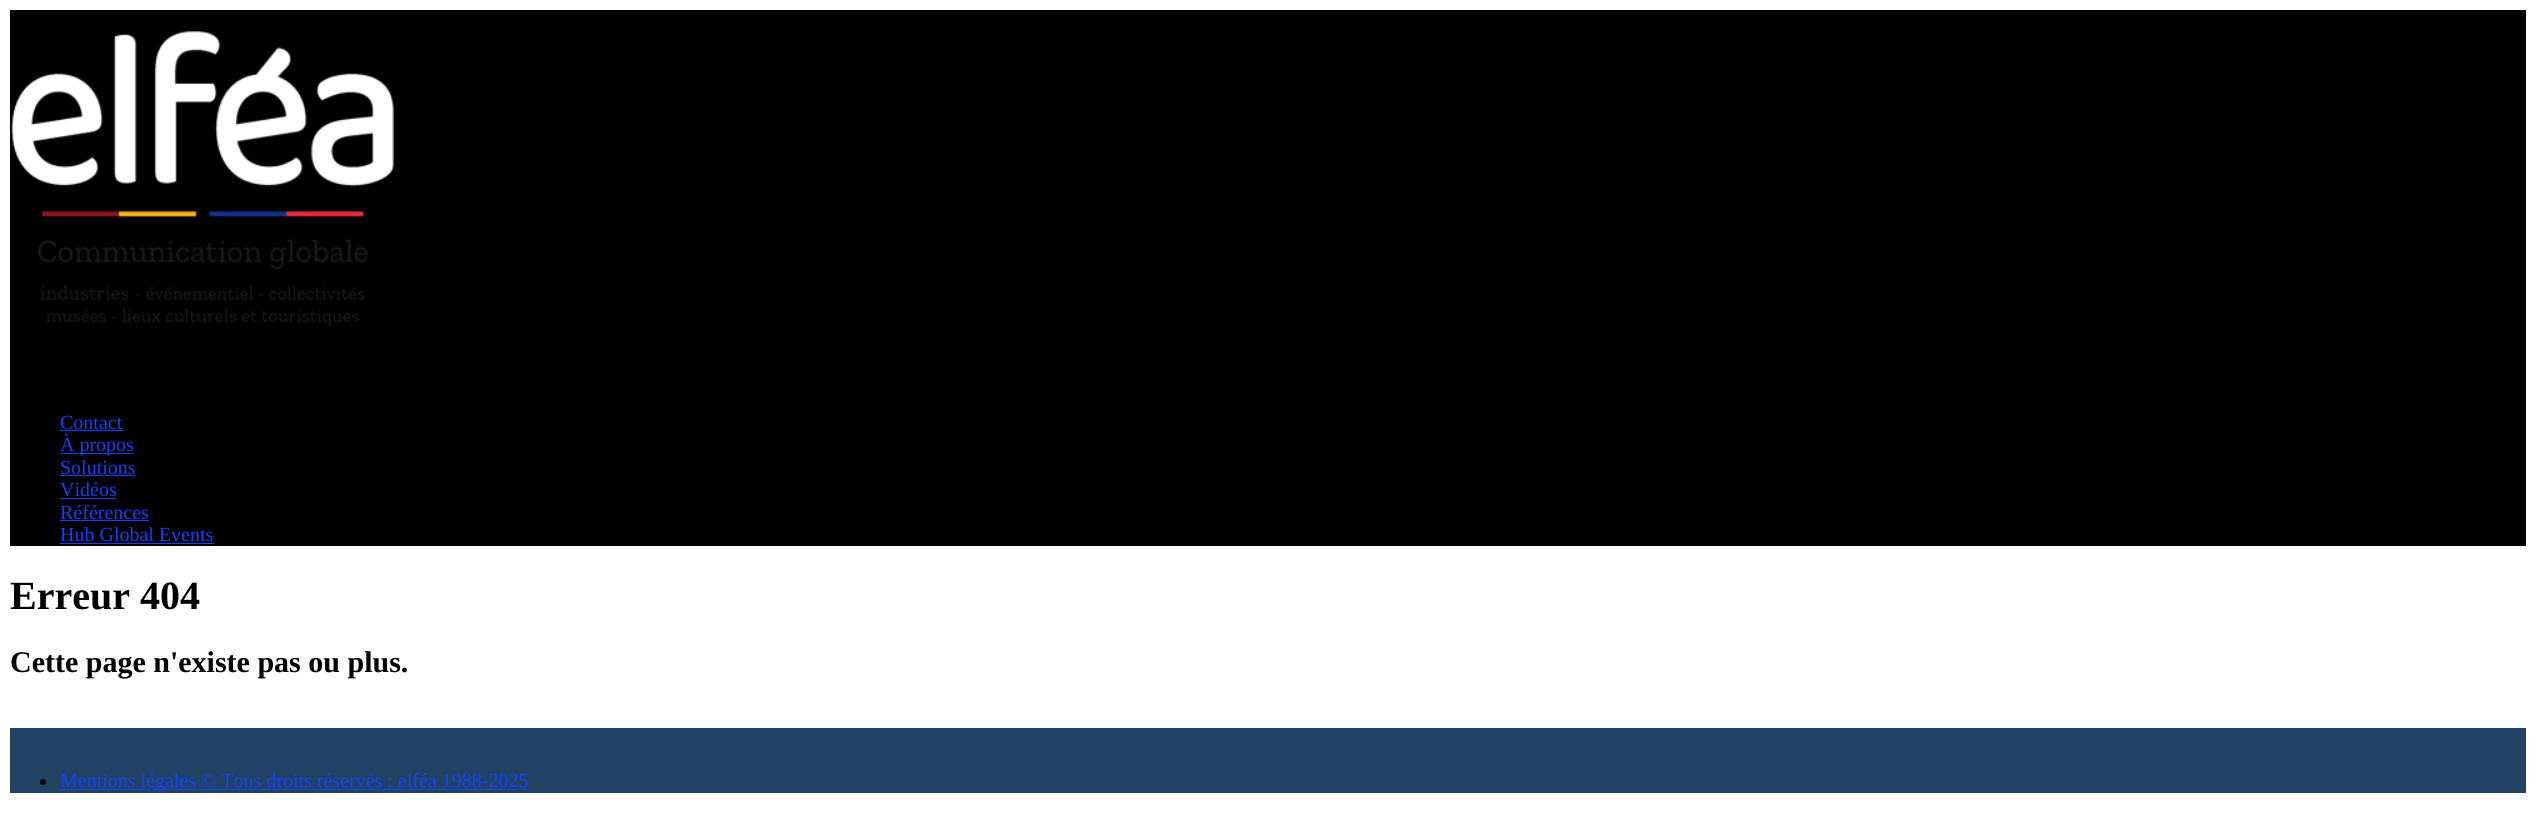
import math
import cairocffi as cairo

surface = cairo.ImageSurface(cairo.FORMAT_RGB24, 2536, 816)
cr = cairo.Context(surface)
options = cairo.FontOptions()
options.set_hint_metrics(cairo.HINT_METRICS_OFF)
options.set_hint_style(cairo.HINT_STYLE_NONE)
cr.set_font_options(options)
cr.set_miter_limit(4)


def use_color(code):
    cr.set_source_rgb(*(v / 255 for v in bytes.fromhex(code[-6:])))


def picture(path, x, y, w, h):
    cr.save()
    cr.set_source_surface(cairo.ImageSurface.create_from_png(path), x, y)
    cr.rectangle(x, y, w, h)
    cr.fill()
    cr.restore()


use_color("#ffffff")
cr.paint()
use_color("#000000")
cr.rectangle(10, 10, 2516, 536)
cr.fill()
picture("img1.png", 11, 30, 383, 296)
cr.select_font_face("Liberation Serif")
cr.set_font_size(20)
use_color("#1042fb")
cr.move_to(60, 429)
cr.show_text("Contact")
cr.rectangle(60, 430, 63, 1)
cr.fill()
cr.rectangle(60, 453, 74, 1)
cr.fill()
cr.move_to(60, 451)
cr.show_text("À propos")
cr.move_to(60, 474)
cr.show_text("Solutions")
cr.rectangle(60, 475, 75, 1)
cr.fill()
cr.move_to(60, 496)
cr.show_text("Vidéos")
cr.rectangle(60, 498, 56, 1)
cr.fill()
cr.move_to(60, 519)
cr.show_text("Références")
cr.rectangle(60, 520, 89, 1)
cr.fill()
cr.move_to(60, 541)
cr.show_text("Hub Global Events")
cr.rectangle(60, 543, 154, 1)
cr.fill()
cr.select_font_face("Liberation Serif", cairo.FONT_SLANT_NORMAL, cairo.FONT_WEIGHT_BOLD)
cr.set_font_size(40)
use_color("#000000")
cr.move_to(10, 609)
cr.show_text("Erreur 404")
cr.set_font_size(30)
cr.move_to(10, 672)
cr.show_text("Cette page n'existe pas ou plus.")
use_color("#214263")
cr.rectangle(10, 728, 2516, 65)
cr.fill()
use_color("#000000")
cr.arc(43, 782, 3, 0, 2 * math.pi)
cr.fill()
use_color("#1042fb")
cr.rectangle(60, 789, 469, 1)
cr.fill()
cr.select_font_face("Liberation Serif")
cr.set_font_size(20)
cr.move_to(60, 787)
cr.show_text("Mentions légales © Tous droits réservés : elféa 1988-2025")
surface.write_to_png("result.png")
